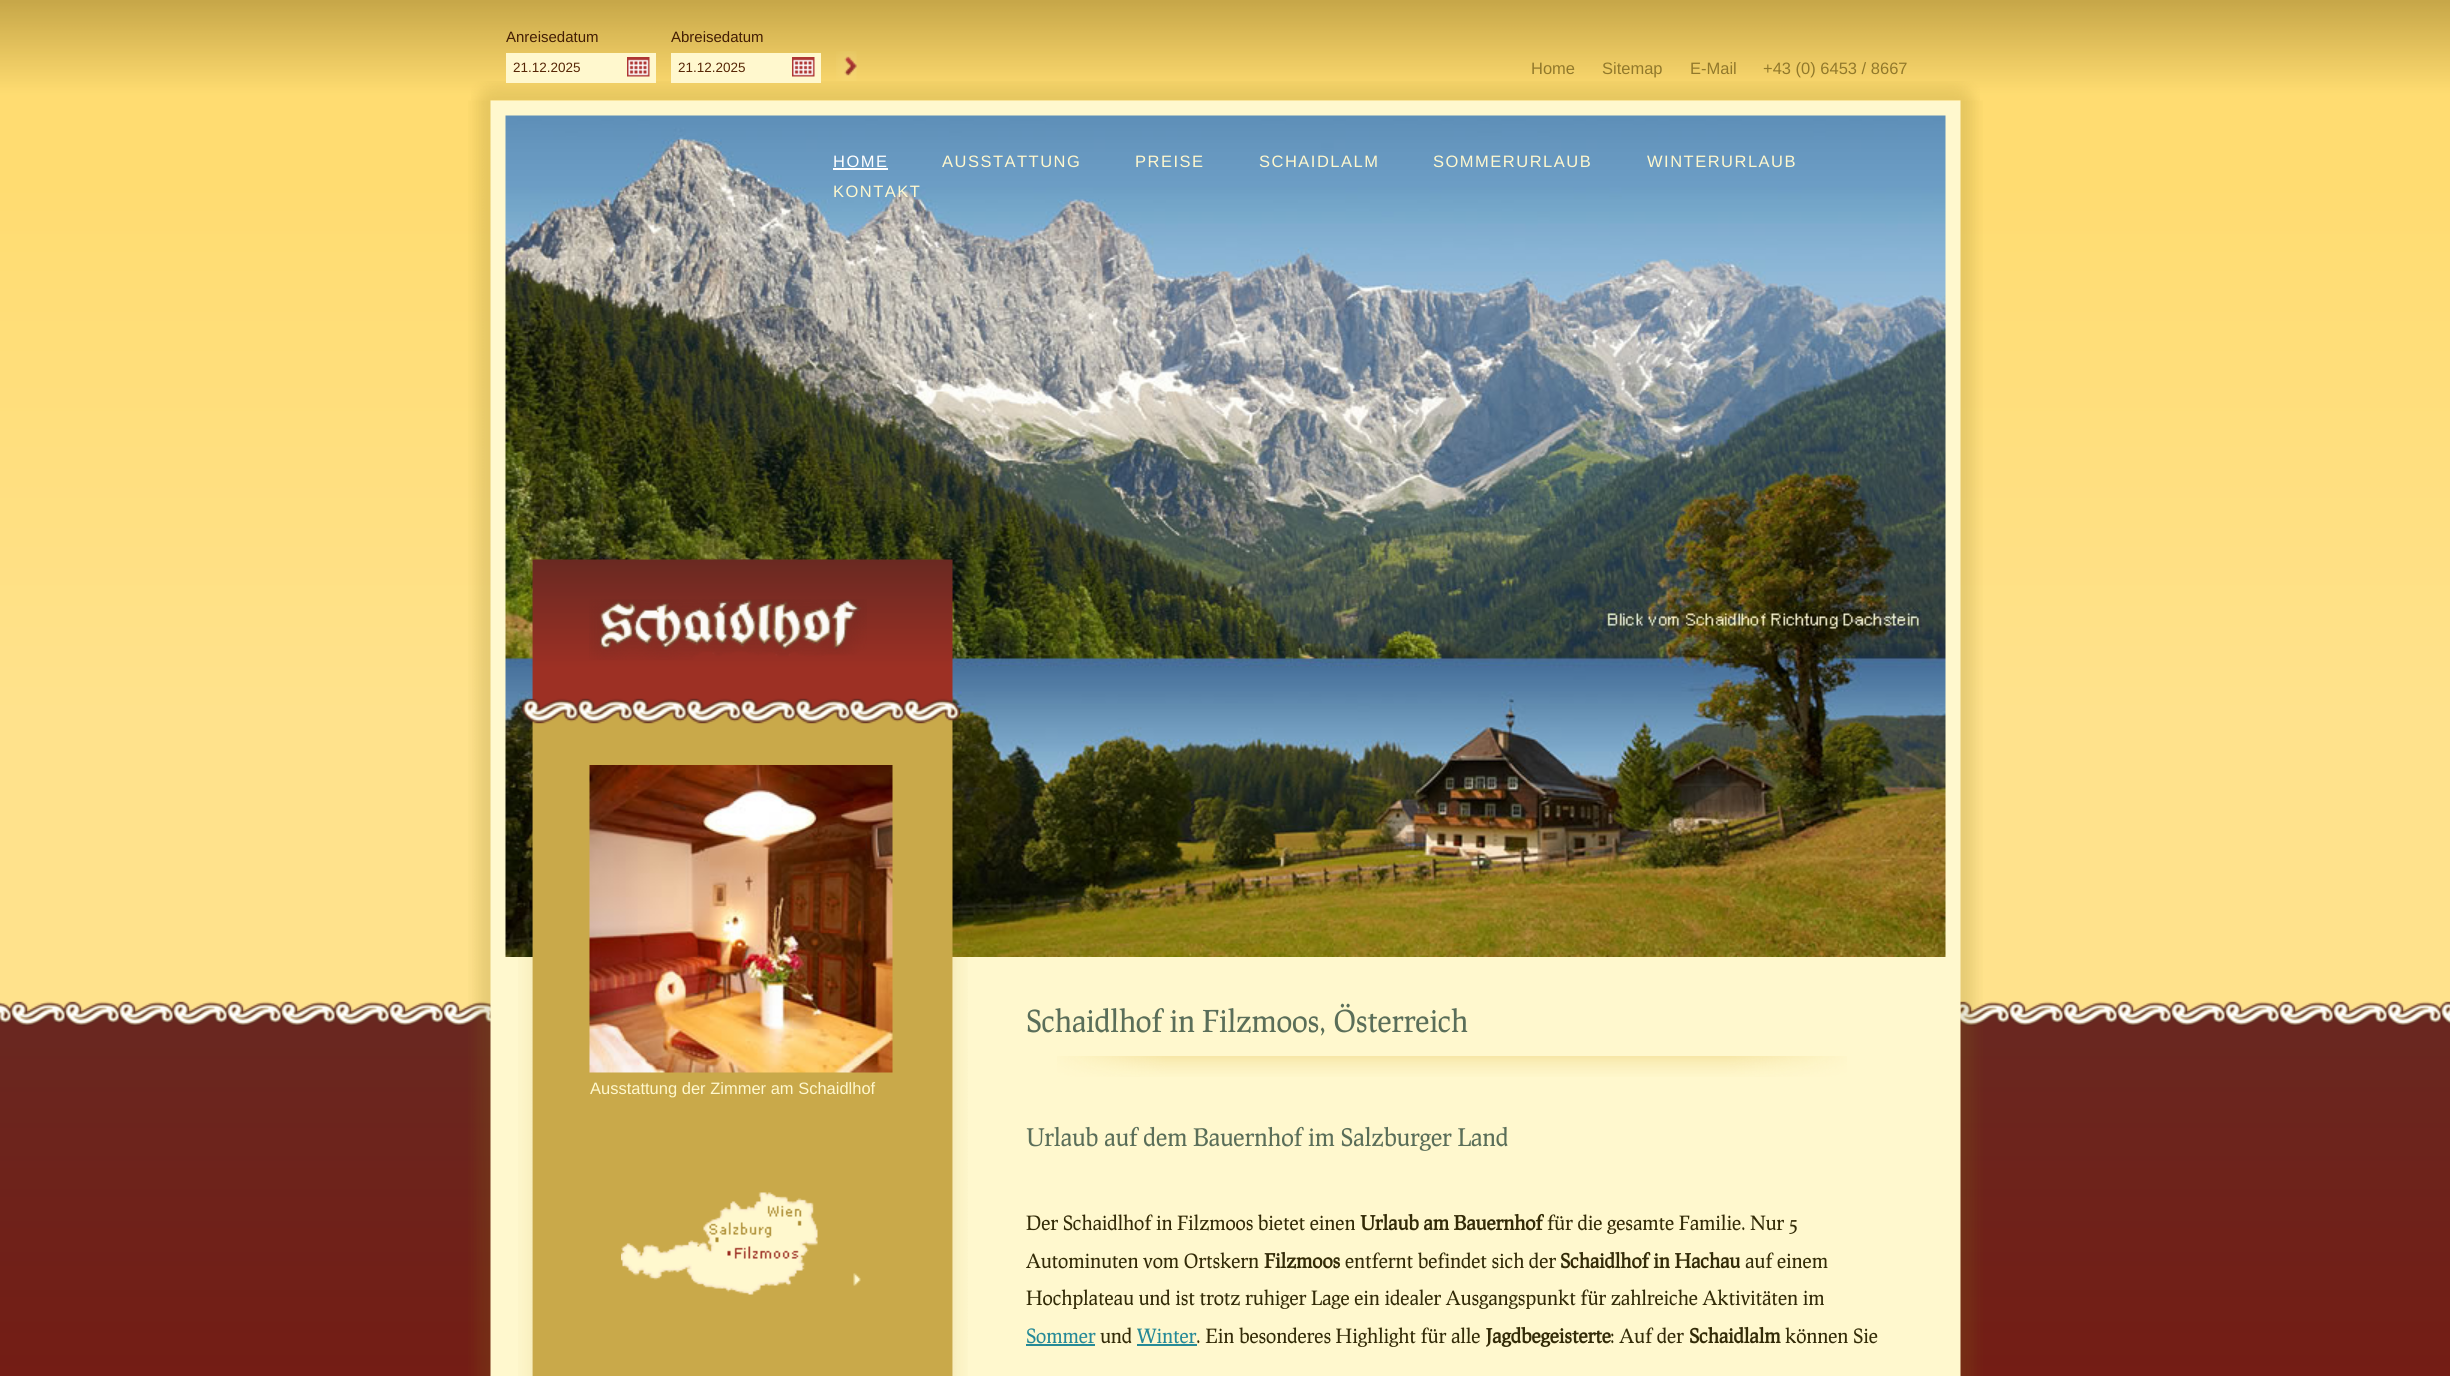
import math
import cairocffi as cairo

surface = cairo.ImageSurface(cairo.FORMAT_RGB24, 2450, 1376)
cr = cairo.Context(surface)
options = cairo.FontOptions()
options.set_hint_metrics(cairo.HINT_METRICS_OFF)
options.set_hint_style(cairo.HINT_STYLE_NONE)
cr.set_font_options(options)
cr.set_miter_limit(4)


def use_color(code):
    cr.set_source_rgb(*(v / 255 for v in bytes.fromhex(code[-6:])))


def spaced_text(x, y, s, letter, word):
    cr.move_to(x, y)
    for ch in s:
        cr.show_text(ch)
        cr.rel_move_to(letter + word * (ch == ' '), 0)


def picture(path, x, y, w, h):
    cr.save()
    cr.set_source_surface(cairo.ImageSurface.create_from_png(path), x, y)
    cr.rectangle(x, y, w, h)
    cr.fill()
    cr.restore()


use_color("#ffffff")
cr.paint()
picture("img1.png", 0, 0, 2450, 1376)
picture("img2.png", 471, 81, 1509, 20)
cr.select_font_face("Liberation Sans")
cr.set_font_size(15)
use_color("#441e04")
cr.move_to(506, 42)
cr.show_text("Anreisedatum")
use_color("#fff8ce")
cr.rectangle(506, 53, 150, 30)
cr.fill()
cr.set_font_size(13.5)
use_color("#572606")
cr.move_to(513, 72)
cr.show_text("21.12.2025")
picture("img3.png", 627, 57, 23, 20)
cr.set_font_size(15)
use_color("#441e04")
cr.move_to(671, 42)
cr.show_text("Abreisedatum")
use_color("#fff8ce")
cr.rectangle(671, 53, 150, 30)
cr.fill()
cr.set_font_size(13.5)
use_color("#572606")
cr.move_to(678, 72)
cr.show_text("21.12.2025")
picture("img3.png", 792, 57, 23, 20)
picture("img4.png", 836, 51, 21, 30)
cr.set_font_size(16.5)
use_color("#92792b")
cr.move_to(1531, 74)
cr.show_text("Home")
cr.move_to(1602, 74)
cr.show_text("Sitemap")
cr.move_to(1690, 74)
cr.show_text("E-Mail")
cr.move_to(1763, 74)
cr.show_text("+43 (0) 6453 / 8667")
picture("img5.png", 468, 100, 1515, 1276)
picture("img6.png", 505, 115, 1441, 842)
use_color("#ffffff")
spaced_text(833, 167, "HOME", 1.5, 0)
cr.rectangle(833, 168, 55, 2)
cr.fill()
use_color("#fff8ce")
spaced_text(942, 167, "AUSSTATTUNG", 1.5, 0)
spaced_text(1135, 167, "PREISE", 1.5, 0)
spaced_text(1259, 167, "SCHAIDLALM", 1.5, 0)
spaced_text(1433, 167, "SOMMERURLAUB", 1.5, 0)
spaced_text(1647, 167, "WINTERURLAUB", 1.5, 0)
spaced_text(833, 197, "KONTAKT", 1.5, 0)
picture("img7.png", 518, 957, 450, 419)
picture("img8.png", 522, 559, 438, 817)
picture("img9.png", 589, 599, 278, 61)
picture("img10.png", 589, 765, 304, 308)
cr.move_to(590, 1094)
cr.show_text("Ausstattung der Zimmer am Schaidlhof")
picture("img11.png", 621, 1192, 240, 103)
picture("img12.png", 1057, 1056, 790, 21)
cr.select_font_face("Prociono")
cr.set_font_size(30)
use_color("#5a6e59")
cr.move_to(1026, 1032)
cr.show_text("Schaidlhof in Filzmoos, Österreich")
cr.set_font_size(24)
cr.move_to(1026, 1146)
cr.show_text("Urlaub auf dem Bauernhof im Salzburger Land")
cr.set_font_size(19.5)
use_color("#332b07")
cr.move_to(1026, 1230)
cr.show_text("Der Schaidlhof in Filzmoos bietet einen")
cr.select_font_face("Prociono", cairo.FONT_SLANT_NORMAL, cairo.FONT_WEIGHT_BOLD)
cr.move_to(1360, 1230)
cr.show_text("Urlaub am Bauernhof")
cr.select_font_face("Prociono")
cr.move_to(1547, 1230)
cr.show_text("für die gesamte Familie. Nur 5")
cr.move_to(1026, 1268)
cr.show_text("Autominuten vom Ortskern")
cr.select_font_face("Prociono", cairo.FONT_SLANT_NORMAL, cairo.FONT_WEIGHT_BOLD)
cr.move_to(1264, 1268)
cr.show_text("Filzmoos")
cr.select_font_face("Prociono")
cr.move_to(1345, 1268)
cr.show_text("entfernt befindet sich der")
cr.select_font_face("Prociono", cairo.FONT_SLANT_NORMAL, cairo.FONT_WEIGHT_BOLD)
cr.move_to(1560, 1268)
cr.show_text("Schaidlhof in Hachau")
cr.select_font_face("Prociono")
cr.move_to(1745, 1268)
cr.show_text("auf einem")
cr.move_to(1026, 1305)
cr.show_text("Hochplateau und ist trotz ruhiger Lage ein idealer Ausgangspunkt für zahlreiche Aktivitäten im")
use_color("#268a97")
cr.move_to(1026, 1343)
cr.show_text("Sommer")
cr.rectangle(1026, 1344, 69, 2)
cr.fill()
use_color("#332b07")
cr.move_to(1100, 1343)
cr.show_text("und")
use_color("#268a97")
cr.move_to(1137, 1343)
cr.show_text("Winter")
cr.rectangle(1137, 1344, 60, 2)
cr.fill()
use_color("#332b07")
cr.move_to(1196, 1343)
cr.show_text(". Ein besonderes Highlight für alle")
cr.select_font_face("Prociono", cairo.FONT_SLANT_NORMAL, cairo.FONT_WEIGHT_BOLD)
cr.move_to(1486, 1343)
cr.show_text("Jagdbegeisterte")
cr.select_font_face("Prociono")
cr.move_to(1610, 1343)
cr.show_text(": Auf der")
cr.select_font_face("Prociono", cairo.FONT_SLANT_NORMAL, cairo.FONT_WEIGHT_BOLD)
cr.move_to(1689, 1343)
cr.show_text("Schaidlalm")
cr.select_font_face("Prociono")
cr.move_to(1785, 1343)
cr.show_text("können Sie")
surface.write_to_png("result.png")
